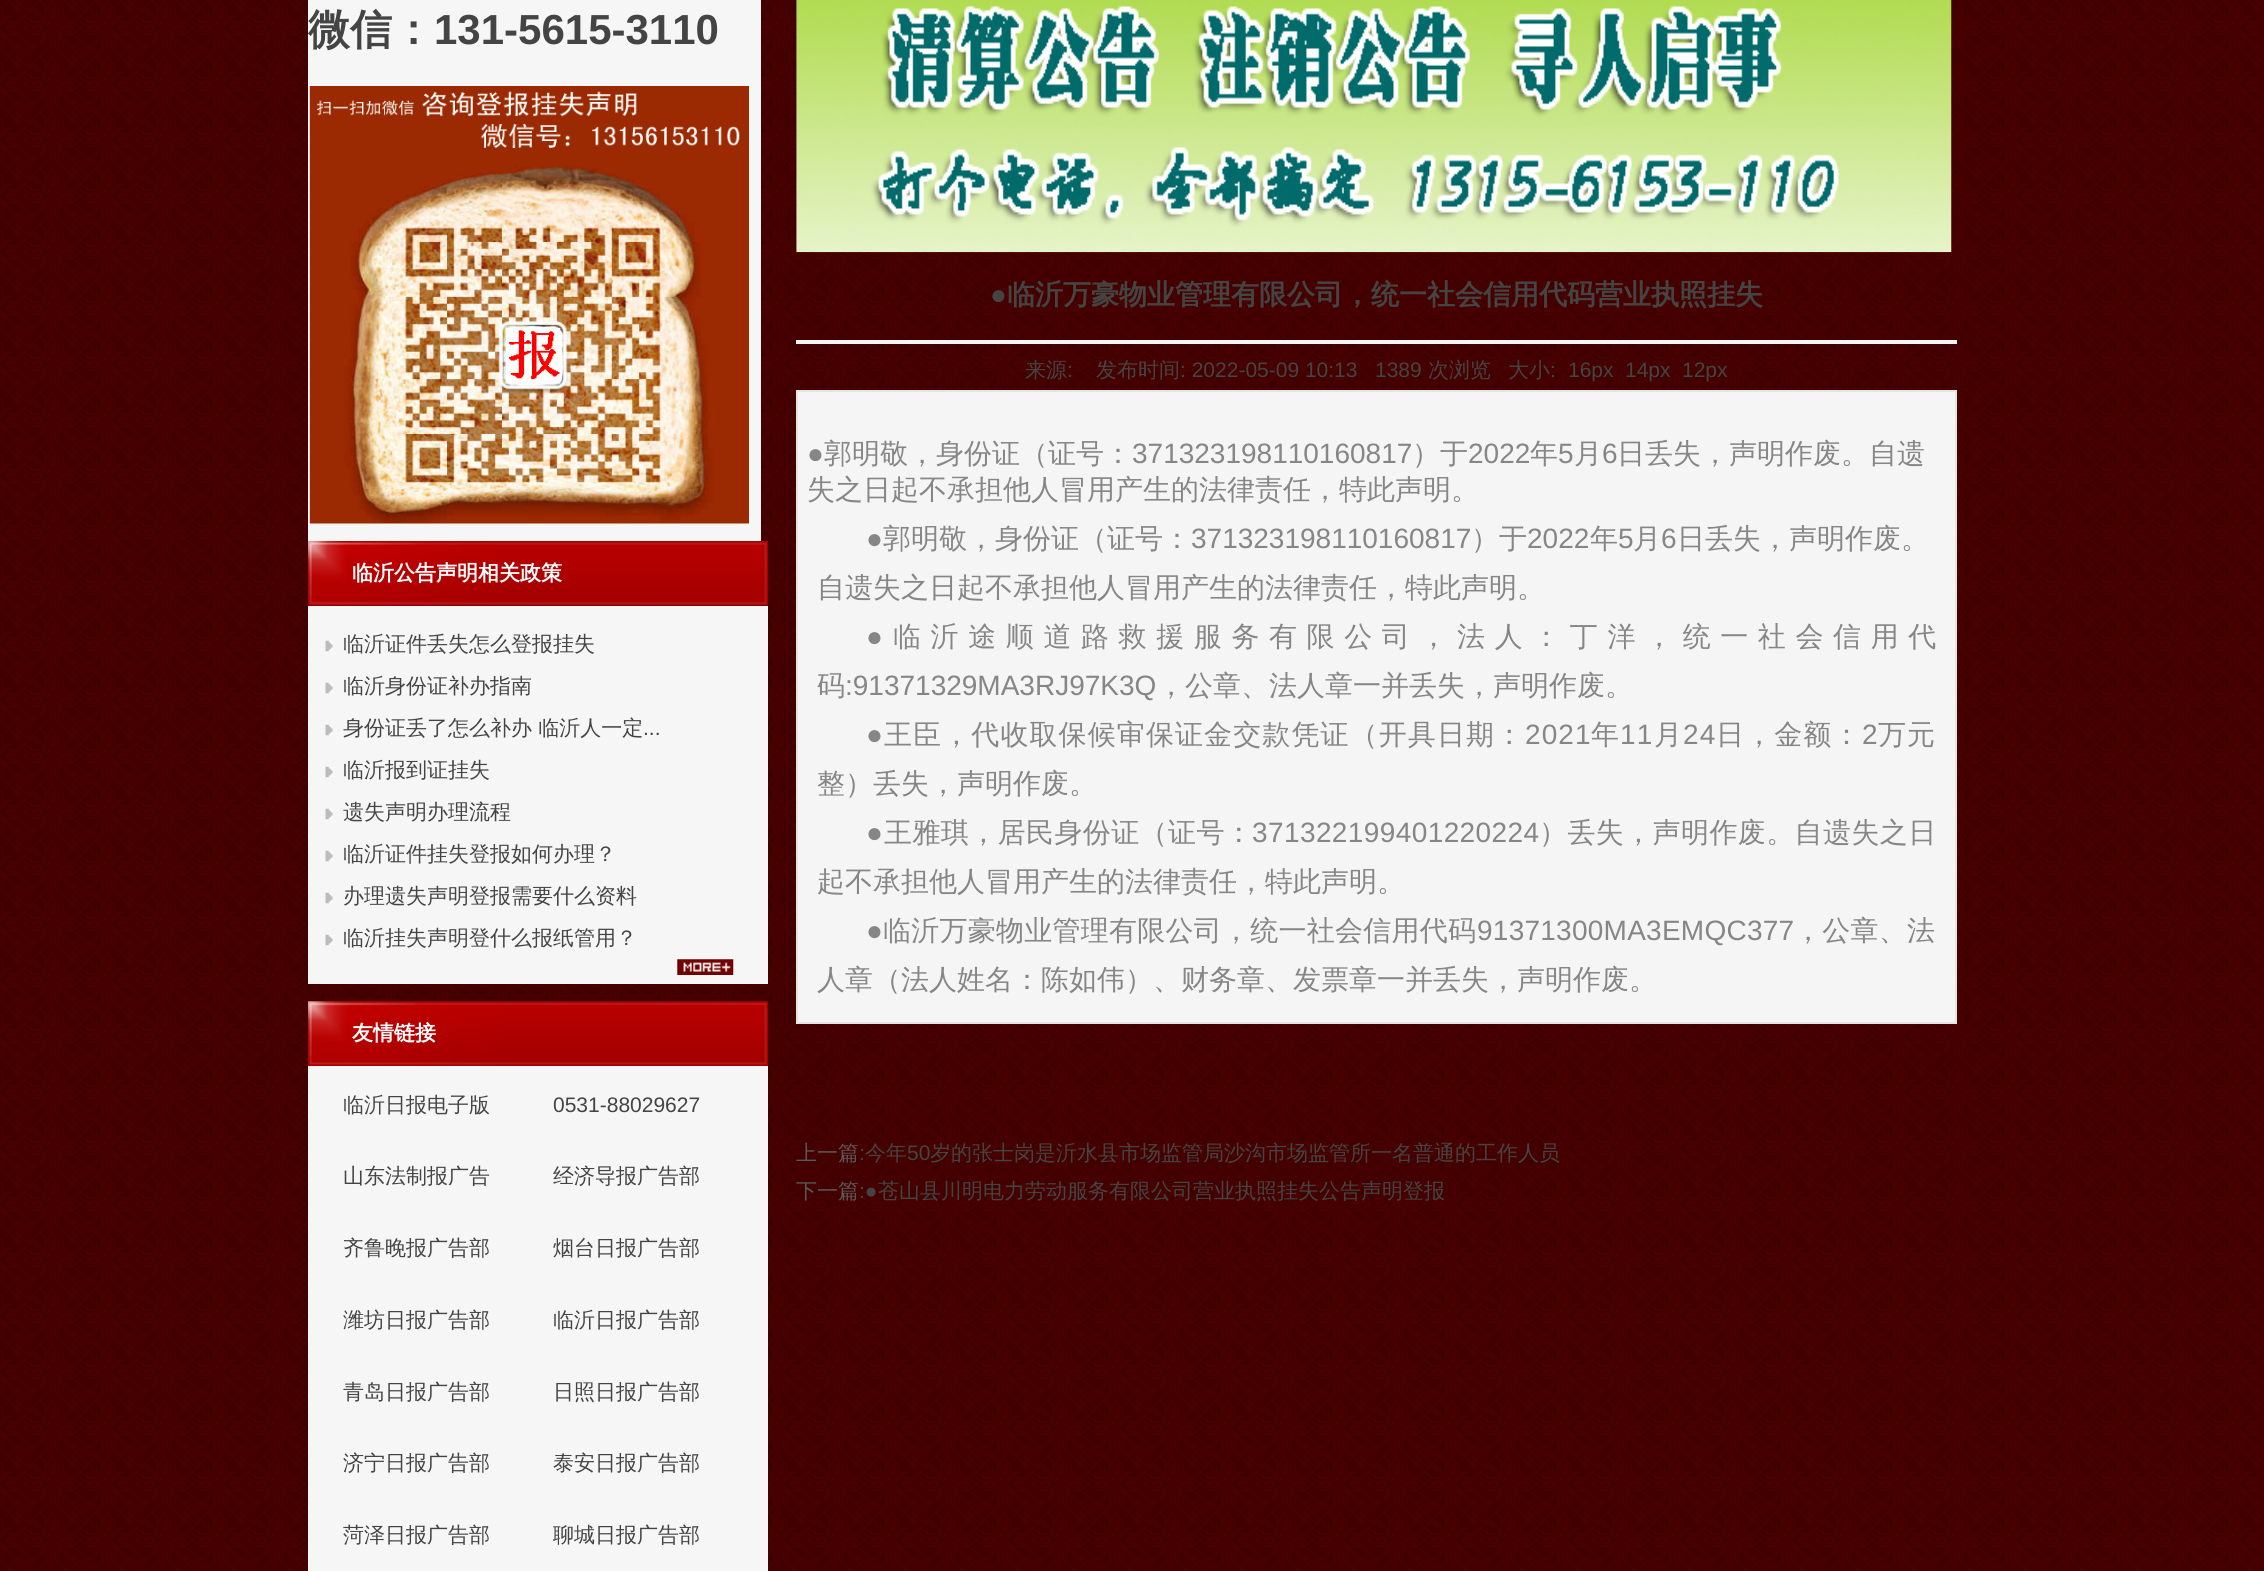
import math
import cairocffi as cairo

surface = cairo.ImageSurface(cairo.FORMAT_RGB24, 2264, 1571)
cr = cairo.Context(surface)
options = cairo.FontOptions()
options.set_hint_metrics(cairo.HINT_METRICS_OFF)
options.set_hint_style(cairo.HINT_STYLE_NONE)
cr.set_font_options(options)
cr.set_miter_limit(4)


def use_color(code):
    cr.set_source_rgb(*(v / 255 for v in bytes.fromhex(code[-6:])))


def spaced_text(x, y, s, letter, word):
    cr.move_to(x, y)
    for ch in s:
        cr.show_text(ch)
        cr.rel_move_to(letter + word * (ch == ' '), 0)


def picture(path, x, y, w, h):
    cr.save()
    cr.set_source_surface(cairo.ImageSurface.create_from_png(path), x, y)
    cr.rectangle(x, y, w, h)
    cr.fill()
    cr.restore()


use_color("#ffffff")
cr.paint()
picture("img1.png", 0, 0, 2264, 1571)
use_color("#f6f6f6")
cr.rectangle(308, 0, 453, 541)
cr.fill()
cr.select_font_face("WenQuanYi Zen Hei", cairo.FONT_SLANT_NORMAL, cairo.FONT_WEIGHT_BOLD)
cr.set_font_size(42)
use_color("#444444")
cr.move_to(308, 44)
cr.show_text("微信：")
cr.select_font_face("Liberation Sans", cairo.FONT_SLANT_NORMAL, cairo.FONT_WEIGHT_BOLD)
cr.move_to(434, 44)
cr.show_text("131-5615-3110")
picture("img2.png", 308, 86, 441, 438)
picture("img3.png", 308, 541, 461, 65)
cr.select_font_face("WenQuanYi Zen Hei", cairo.FONT_SLANT_NORMAL, cairo.FONT_WEIGHT_BOLD)
cr.set_font_size(21)
use_color("#ffffff")
cr.move_to(352, 580)
cr.show_text("临沂公告声明相关政策")
use_color("#f6f6f6")
cr.rectangle(308, 606, 460, 378)
cr.fill()
picture("img4.png", 325, 640, 8, 12)
cr.select_font_face("WenQuanYi Zen Hei Medium")
use_color("#444444")
cr.move_to(343, 651)
cr.show_text("临沂证件丢失怎么登报挂失")
picture("img4.png", 325, 682, 8, 12)
cr.move_to(343, 693)
cr.show_text("临沂身份证补办指南")
picture("img4.png", 325, 724, 8, 12)
cr.move_to(343, 735)
cr.show_text("身份证丢了怎么补办 临沂人一定")
cr.select_font_face("Liberation Sans")
cr.move_to(643, 735)
cr.show_text("...")
picture("img4.png", 325, 766, 8, 12)
cr.select_font_face("WenQuanYi Zen Hei Medium")
cr.move_to(343, 777)
cr.show_text("临沂报到证挂失")
picture("img4.png", 325, 808, 8, 12)
cr.move_to(343, 819)
cr.show_text("遗失声明办理流程")
picture("img4.png", 325, 850, 8, 12)
cr.move_to(343, 861)
cr.show_text("临沂证件挂失登报如何办理？")
picture("img4.png", 325, 892, 8, 12)
cr.move_to(343, 903)
cr.show_text("办理遗失声明登报需要什么资料")
picture("img4.png", 325, 934, 8, 12)
cr.move_to(343, 945)
cr.show_text("临沂挂失声明登什么报纸管用？")
picture("img5.png", 677, 959, 57, 16)
picture("img6.png", 308, 1001, 461, 65)
cr.select_font_face("WenQuanYi Zen Hei", cairo.FONT_SLANT_NORMAL, cairo.FONT_WEIGHT_BOLD)
use_color("#ffffff")
cr.move_to(352, 1040)
cr.show_text("友情链接")
use_color("#f6f6f6")
cr.rectangle(308, 1066, 460, 505)
cr.fill()
cr.select_font_face("WenQuanYi Zen Hei Medium")
use_color("#444444")
cr.move_to(343, 1112)
cr.show_text("临沂日报电子版")
cr.select_font_face("Liberation Sans")
cr.move_to(553, 1112)
cr.show_text("0531-88029627")
cr.select_font_face("WenQuanYi Zen Hei Medium")
cr.move_to(343, 1183)
cr.show_text("山东法制报广告")
cr.move_to(553, 1183)
cr.show_text("经济导报广告部")
cr.move_to(343, 1255)
cr.show_text("齐鲁晚报广告部")
cr.move_to(553, 1255)
cr.show_text("烟台日报广告部")
cr.move_to(343, 1327)
cr.show_text("潍坊日报广告部")
cr.move_to(553, 1327)
cr.show_text("临沂日报广告部")
cr.move_to(343, 1399)
cr.show_text("青岛日报广告部")
cr.move_to(553, 1399)
cr.show_text("日照日报广告部")
cr.move_to(343, 1470)
cr.show_text("济宁日报广告部")
cr.move_to(553, 1470)
cr.show_text("泰安日报广告部")
cr.move_to(343, 1542)
cr.show_text("菏泽日报广告部")
cr.move_to(553, 1542)
cr.show_text("聊城日报广告部")
picture("img7.png", 796, 0, 1156, 253)
use_color("#f5f5f5")
cr.rectangle(796, 340, 1161, 4)
cr.fill()
cr.select_font_face("Liberation Sans", cairo.FONT_SLANT_NORMAL, cairo.FONT_WEIGHT_BOLD)
cr.set_font_size(28)
use_color("#444444")
cr.move_to(990, 304)
cr.show_text("●")
cr.select_font_face("WenQuanYi Zen Hei", cairo.FONT_SLANT_NORMAL, cairo.FONT_WEIGHT_BOLD)
cr.move_to(1007, 304)
cr.show_text("临沂万豪物业管理有限公司，统一社会信用代码营业执照挂失")
cr.select_font_face("WenQuanYi Zen Hei Medium")
cr.set_font_size(21)
cr.move_to(1025, 377)
cr.show_text("来源")
cr.select_font_face("Liberation Sans")
cr.move_to(1067, 377)
cr.show_text(":")
cr.select_font_face("WenQuanYi Zen Hei Medium")
cr.move_to(1096, 377)
cr.show_text("发布时间")
cr.select_font_face("Liberation Sans")
cr.move_to(1180, 377)
cr.show_text(": 2022-05-09 10:13   1389")
cr.select_font_face("WenQuanYi Zen Hei Medium")
cr.move_to(1428, 377)
cr.show_text("次浏览")
cr.move_to(1508, 377)
cr.show_text("大小")
cr.select_font_face("Liberation Sans")
cr.move_to(1550, 377)
cr.show_text(":")
cr.move_to(1568, 377)
cr.show_text("16px")
cr.move_to(1625, 377)
cr.show_text("14px")
cr.move_to(1682, 377)
cr.show_text("12px")
use_color("#f5f5f5")
cr.rectangle(797, 391, 1159, 632)
cr.fill_preserve()
use_color("#e5e5e5")
cr.stroke()
cr.set_font_size(28)
use_color("#868686")
cr.move_to(807, 463)
cr.show_text("●")
cr.select_font_face("WenQuanYi Zen Hei Medium")
cr.move_to(824, 463)
cr.show_text("郭明敬，身份证（证号：")
cr.select_font_face("Liberation Sans")
cr.move_to(1132, 463)
cr.show_text("371323198110160817")
cr.select_font_face("WenQuanYi Zen Hei Medium")
cr.move_to(1412, 463)
cr.show_text("）于")
cr.select_font_face("Liberation Sans")
cr.move_to(1468, 463)
cr.show_text("2022")
cr.select_font_face("WenQuanYi Zen Hei Medium")
cr.move_to(1530, 463)
cr.show_text("年")
cr.select_font_face("Liberation Sans")
cr.move_to(1558, 463)
cr.show_text("5")
cr.select_font_face("WenQuanYi Zen Hei Medium")
cr.move_to(1574, 463)
cr.show_text("月")
cr.select_font_face("Liberation Sans")
cr.move_to(1602, 463)
cr.show_text("6")
cr.select_font_face("WenQuanYi Zen Hei Medium")
cr.move_to(1617, 463)
cr.show_text("日丢失，声明作废。自遗")
cr.move_to(807, 499)
cr.show_text("失之日起不承担他人冒用产生的法律责任，特此声明。")
cr.select_font_face("Liberation Sans")
cr.move_to(866, 548)
cr.show_text("●")
cr.select_font_face("WenQuanYi Zen Hei Medium")
cr.move_to(883, 548)
cr.show_text("郭明敬，身份证（证号：")
cr.select_font_face("Liberation Sans")
cr.move_to(1191, 548)
cr.show_text("371323198110160817")
cr.select_font_face("WenQuanYi Zen Hei Medium")
cr.move_to(1471, 548)
cr.show_text("）于")
cr.select_font_face("Liberation Sans")
cr.move_to(1527, 548)
cr.show_text("2022")
cr.select_font_face("WenQuanYi Zen Hei Medium")
cr.move_to(1590, 548)
cr.show_text("年")
cr.select_font_face("Liberation Sans")
cr.move_to(1618, 548)
cr.show_text("5")
cr.select_font_face("WenQuanYi Zen Hei Medium")
cr.move_to(1633, 548)
cr.show_text("月")
cr.select_font_face("Liberation Sans")
cr.move_to(1661, 548)
cr.show_text("6")
cr.select_font_face("WenQuanYi Zen Hei Medium")
cr.move_to(1677, 548)
cr.show_text("日丢失，声明作废。")
cr.move_to(817, 597)
cr.show_text("自遗失之日起不承担他人冒用产生的法律责任，特此声明。")
cr.select_font_face("Liberation Sans")
spaced_text(866, 646, "●", 9.6, 0)
cr.select_font_face("WenQuanYi Zen Hei Medium")
spaced_text(893, 646, "临沂途顺道路救援服务有限公司，法人：丁洋，统一社会信用代", 9.6, 0)
cr.move_to(817, 695)
cr.show_text("码")
cr.select_font_face("Liberation Sans")
cr.move_to(845, 695)
cr.show_text(":91371329MA3RJ97K3Q")
cr.select_font_face("WenQuanYi Zen Hei Medium")
cr.move_to(1157, 695)
cr.show_text("，公章、法人章一并丢失，声明作废。")
cr.select_font_face("Liberation Sans")
spaced_text(866, 744, "●", 1.1, 0)
cr.select_font_face("WenQuanYi Zen Hei Medium")
spaced_text(884, 744, "王臣，代收取保候审保证金交款凭证（开具日期：", 1.1, 0)
cr.select_font_face("Liberation Sans")
spaced_text(1525, 744, "2021", 1.1, 0)
cr.select_font_face("WenQuanYi Zen Hei Medium")
spaced_text(1591, 744, "年", 1.1, 0)
cr.select_font_face("Liberation Sans")
spaced_text(1620, 744, "11", 1.1, 0)
cr.select_font_face("WenQuanYi Zen Hei Medium")
spaced_text(1654, 744, "月", 1.1, 0)
cr.select_font_face("Liberation Sans")
spaced_text(1683, 744, "24", 1.1, 0)
cr.select_font_face("WenQuanYi Zen Hei Medium")
spaced_text(1716, 744, "日，金额：", 1.1, 0)
cr.select_font_face("Liberation Sans")
spaced_text(1862, 744, "2", 1.1, 0)
cr.select_font_face("WenQuanYi Zen Hei Medium")
spaced_text(1878, 744, "万元", 1.1, 0)
cr.move_to(817, 793)
cr.show_text("整）丢失，声明作废。")
cr.select_font_face("Liberation Sans")
spaced_text(866, 842, "●", 0.4, 0)
cr.select_font_face("WenQuanYi Zen Hei Medium")
spaced_text(884, 842, "王雅琪，居民身份证（证号：", 0.4, 0)
cr.select_font_face("Liberation Sans")
spaced_text(1252, 842, "371322199401220224", 0.4, 0)
cr.select_font_face("WenQuanYi Zen Hei Medium")
spaced_text(1539, 842, "）丢失，声明作废。自遗失之日", 0.4, 0)
cr.move_to(817, 891)
cr.show_text("起不承担他人冒用产生的法律责任，特此声明。")
cr.select_font_face("Liberation Sans")
spaced_text(866, 940, "●", 0.25, 0)
cr.select_font_face("WenQuanYi Zen Hei Medium")
spaced_text(883, 940, "临沂万豪物业管理有限公司，统一社会信用代码", 0.25, 0)
cr.select_font_face("Liberation Sans")
spaced_text(1477, 940, "91371300MA3EMQC377", 0.25, 0)
cr.select_font_face("WenQuanYi Zen Hei Medium")
spaced_text(1794, 940, "，公章、法", 0.25, 0)
cr.move_to(817, 989)
cr.show_text("人章（法人姓名：陈如伟）、财务章、发票章一并丢失，声明作废。")
cr.set_font_size(21)
use_color("#595959")
cr.move_to(796, 1160)
cr.show_text("上一篇")
cr.select_font_face("Liberation Sans")
use_color("#444444")
cr.move_to(859, 1160)
cr.show_text(":")
cr.select_font_face("WenQuanYi Zen Hei Medium")
cr.move_to(865, 1160)
cr.show_text("今年")
cr.select_font_face("Liberation Sans")
cr.move_to(907, 1160)
cr.show_text("50")
cr.select_font_face("WenQuanYi Zen Hei Medium")
cr.move_to(930, 1160)
cr.show_text("岁的张士岗是沂水县市场监管局沙沟市场监管所一名普通的工作人员")
use_color("#595959")
cr.move_to(796, 1198)
cr.show_text("下一篇")
cr.select_font_face("Liberation Sans")
use_color("#444444")
cr.move_to(859, 1198)
cr.show_text(":●")
cr.select_font_face("WenQuanYi Zen Hei Medium")
cr.move_to(878, 1198)
cr.show_text("苍山县川明电力劳动服务有限公司营业执照挂失公告声明登报")
surface.write_to_png("result.png")
